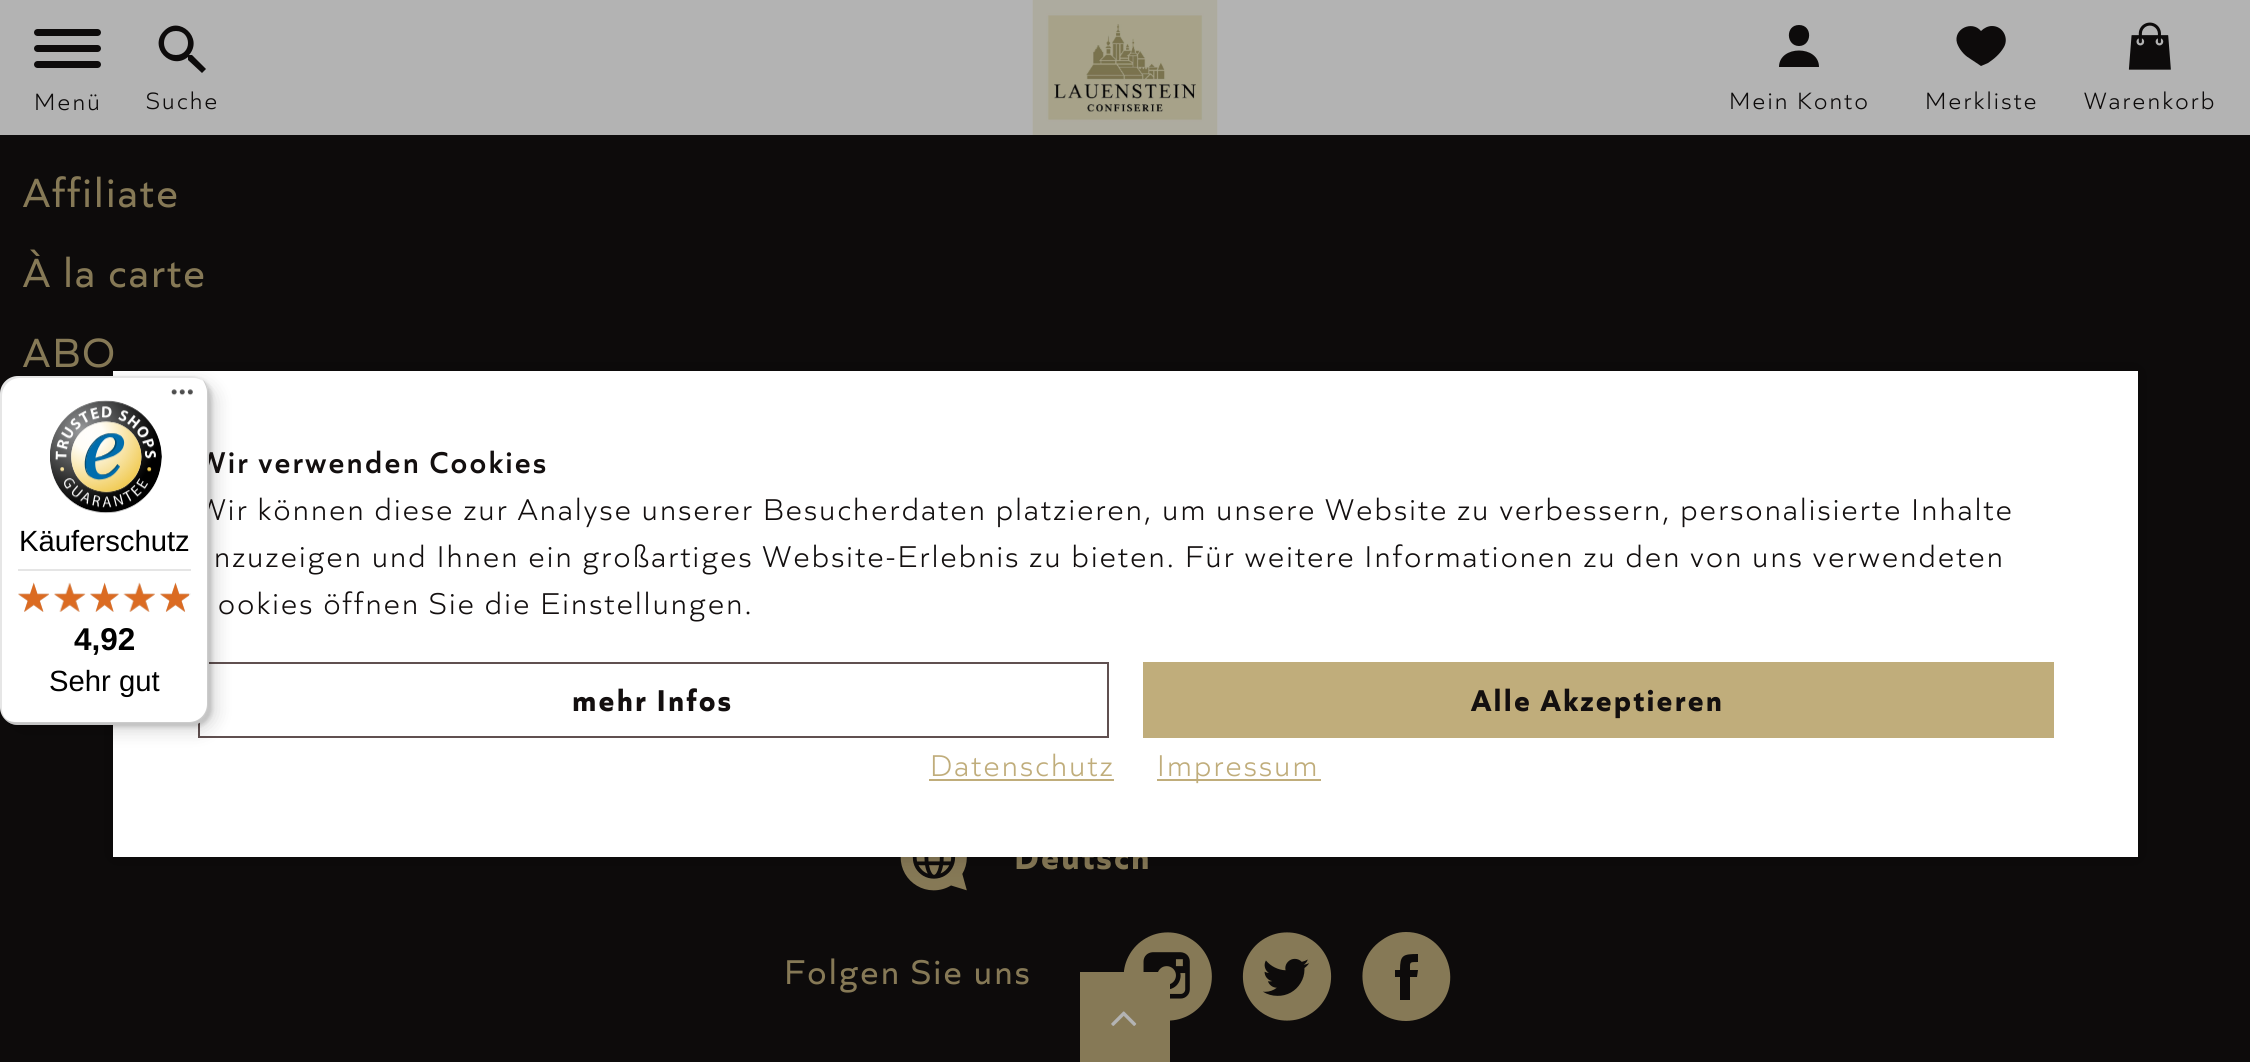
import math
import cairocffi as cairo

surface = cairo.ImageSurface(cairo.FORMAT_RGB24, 2250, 1062)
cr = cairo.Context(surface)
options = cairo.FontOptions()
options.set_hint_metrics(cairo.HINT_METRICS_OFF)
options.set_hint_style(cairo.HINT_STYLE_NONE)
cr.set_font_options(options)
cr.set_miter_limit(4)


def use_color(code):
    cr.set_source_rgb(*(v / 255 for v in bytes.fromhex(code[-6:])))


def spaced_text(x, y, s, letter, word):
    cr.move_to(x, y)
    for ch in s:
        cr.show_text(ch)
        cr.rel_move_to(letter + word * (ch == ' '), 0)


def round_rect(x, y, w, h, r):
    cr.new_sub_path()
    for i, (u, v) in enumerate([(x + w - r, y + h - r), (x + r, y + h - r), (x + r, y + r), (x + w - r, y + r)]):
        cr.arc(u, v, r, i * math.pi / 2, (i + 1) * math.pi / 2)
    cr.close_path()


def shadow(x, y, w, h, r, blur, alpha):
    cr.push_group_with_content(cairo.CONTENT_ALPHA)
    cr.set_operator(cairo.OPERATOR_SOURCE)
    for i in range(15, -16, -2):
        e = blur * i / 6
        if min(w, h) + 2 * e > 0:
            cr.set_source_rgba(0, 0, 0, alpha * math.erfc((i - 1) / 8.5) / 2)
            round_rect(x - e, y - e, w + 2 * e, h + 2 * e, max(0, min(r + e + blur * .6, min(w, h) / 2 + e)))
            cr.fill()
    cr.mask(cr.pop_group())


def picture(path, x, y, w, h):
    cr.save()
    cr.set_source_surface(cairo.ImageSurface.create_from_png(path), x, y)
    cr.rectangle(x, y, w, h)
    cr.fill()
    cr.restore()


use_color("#0d0b0b")
cr.paint()
use_color("#b3b3b3")
cr.rectangle(0, 0, 2250, 135)
cr.fill()
picture("img1.png", 1032, 0, 186, 135)
use_color("#0d0b0b")
round_rect(34, 29, 67, 7, 3.5)
cr.fill()
round_rect(34, 45, 67, 7, 3.5)
cr.fill()
round_rect(34, 61, 67, 7, 3.5)
cr.fill()
cr.select_font_face("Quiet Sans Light")
cr.set_font_size(24.75)
spaced_text(34, 110, "Menü", 2.25, 0)
cr.new_path()
cr.move_to(192, 55)
cr.line_to(190, 55)
cr.line_to(189, 55)
cr.curve_to(204, 38, 179, 15, 164, 31)
cr.curve_to(148, 47, 171, 71, 188, 57)
cr.line_to(188, 60)
cr.line_to(202, 73)
cr.line_to(206, 69)
cr.close_path()
cr.move_to(176, 55)
cr.curve_to(160, 55, 160, 31, 176, 31)
cr.curve_to(192, 31, 192, 55, 176, 55)
cr.close_path()
cr.fill()
spaced_text(146, 109, "Suche", 2.25, 0)
cr.new_path()
cr.move_to(1819, 67)
cr.line_to(1779, 67)
cr.curve_to(1779, 45, 1819, 45, 1819, 67)
cr.close_path()
cr.move_to(1799, 25)
cr.curve_to(1785, 25, 1786, 46, 1799, 46)
cr.curve_to(1812, 46, 1813, 25, 1799, 25)
cr.close_path()
cr.fill()
spaced_text(1729, 109, "Mein Konto", 2.25, 0)
cr.new_path()
cr.move_to(1992, 26)
cr.curve_to(1988, 26, 1984, 28, 1981, 31)
cr.curve_to(1972, 20, 1953, 29, 1957, 43)
cr.curve_to(1959, 49, 1964, 55, 1969, 58)
cr.line_to(1981, 66)
cr.line_to(1988, 63)
cr.curve_to(1994, 59, 2000, 54, 2004, 47)
cr.curve_to(2009, 38, 2003, 26, 1992, 26)
cr.close_path()
cr.fill()
spaced_text(1925, 109, "Merkliste", 2.25, 0)
picture("img2.png", 2128, 22, 43, 48)
spaced_text(2084, 109, "Warenkorb", 2.25, 0)
cr.select_font_face("Quiet Sans")
cr.set_font_size(42.75)
use_color("#867956")
spaced_text(23, 207, "Affiliate", 2.25, 0)
spaced_text(23, 287, "À la carte", 2.25, 0)
spaced_text(23, 367, "ABO", 2.25, 0)
picture("img3.png", 900, 857, 67, 34)
cr.select_font_face("Quiet Sans", cairo.FONT_SLANT_NORMAL, cairo.FONT_WEIGHT_BOLD)
cr.set_font_size(36)
spaced_text(1014, 869, "Deutsch", 2.25, 0)
cr.select_font_face("Quiet Sans")
spaced_text(784, 984, "Folgen Sie uns", 2.25, 0)
picture("img4.png", 1123, 932, 89, 89)
picture("img5.png", 1242, 932, 90, 89)
cr.new_path()
cr.move_to(1406, 932)
cr.curve_to(1397, 932, 1389, 935, 1382, 940)
cr.curve_to(1346, 964, 1363, 1021, 1406, 1021)
cr.curve_to(1415, 1021, 1424, 1018, 1431, 1013)
cr.curve_to(1467, 989, 1449, 932, 1406, 932)
cr.close_path()
cr.move_to(1418, 962)
cr.curve_to(1409, 962, 1410, 962, 1410, 970)
cr.line_to(1418, 970)
cr.line_to(1417, 977)
cr.line_to(1410, 977)
cr.line_to(1410, 1000)
cr.line_to(1400, 1000)
cr.line_to(1400, 977)
cr.line_to(1395, 977)
cr.line_to(1395, 970)
cr.line_to(1400, 970)
cr.curve_to(1400, 955, 1403, 954, 1418, 954)
cr.close_path()
cr.fill()
use_color("#000000")
shadow(113, 371, 2025, 486, 0, 11, 0.2)
use_color("#ffffff")
cr.rectangle(113, 371, 2025, 486)
cr.fill()
cr.rectangle(199, 663, 909, 74)
use_color("#605050")
cr.stroke()
use_color("#000000")
shadow(7, 383, 209, 348, 18, 9, 0.15)
shadow(2, 378, 210, 349, 18, 2, 0.15)
cr.select_font_face("Quiet Sans SemiBold")
cr.set_font_size(31.5)
use_color("#130f0f")
spaced_text(197, 473, "Wir verwenden Cookies", 2.25, 0)
cr.select_font_face("Quiet Sans Light")
spaced_text(197, 520, "Wir können diese zur Analyse unserer Besucherdaten platzieren, um unsere Website zu verbessern, personalisierte Inhalte", 2.25, 0)
use_color("#ffffff")
round_rect(0, 376, 209, 349, 18)
cr.fill()
cr.set_source_rgba(0, 0, 0, 0.1)
cr.new_path()
cr.move_to(20, 378)
cr.line_to(194, 378)
cr.curve_to(197, 378, 200, 379, 203, 381)
cr.curve_to(200, 378, 196, 376, 191, 376)
cr.line_to(18, 376)
cr.curve_to(8, 376, 0, 384, 0, 394)
cr.line_to(0, 707)
cr.curve_to(0, 712, 2, 717, 6, 721)
cr.curve_to(4, 717, 2, 713, 2, 709)
cr.line_to(2, 396)
cr.curve_to(2, 386, 10, 378, 20, 378)
cr.close_path()
cr.fill()
cr.set_source_rgba(0, 0, 0, 0.2)
cr.new_path()
cr.move_to(2, 716)
cr.curve_to(5, 721, 11, 725, 18, 725)
cr.line_to(191, 725)
cr.curve_to(201, 725, 209, 717, 209, 707)
cr.line_to(209, 394)
cr.curve_to(209, 389, 207, 384, 203, 380)
cr.curve_to(205, 384, 207, 388, 207, 392)
cr.line_to(207, 704)
cr.curve_to(207, 714, 199, 722, 189, 722)
cr.line_to(16, 722)
cr.curve_to(10, 722, 5, 720, 2, 716)
cr.close_path()
cr.fill()
cr.set_source_rgba(0.196, 0.196, 0.196, 0.2)
cr.new_path()
cr.move_to(2, 714)
cr.curve_to(4, 721, 11, 725, 18, 725)
cr.line_to(191, 725)
cr.curve_to(201, 725, 209, 717, 209, 707)
cr.line_to(209, 394)
cr.curve_to(209, 391, 208, 388, 207, 385)
cr.curve_to(208, 387, 208, 390, 208, 392)
cr.line_to(208, 705)
cr.curve_to(208, 715, 200, 723, 190, 723)
cr.line_to(17, 723)
cr.curve_to(10, 723, 5, 719, 2, 714)
cr.close_path()
cr.fill()
cr.set_source_rgba(1, 1, 1, 0.3)
cr.new_path()
cr.move_to(2, 714)
cr.curve_to(4, 721, 11, 725, 18, 725)
cr.line_to(191, 725)
cr.curve_to(201, 725, 209, 717, 209, 707)
cr.line_to(209, 394)
cr.curve_to(209, 389, 207, 384, 204, 381)
cr.curve_to(206, 384, 208, 388, 208, 393)
cr.line_to(208, 705)
cr.curve_to(208, 715, 200, 723, 190, 723)
cr.line_to(17, 723)
cr.curve_to(10, 723, 5, 719, 2, 714)
cr.close_path()
cr.fill()
picture("img6.png", 171, 389, 22, 7)
picture("img7.png", 50, 400, 112, 114)
cr.select_font_face("Liberation Sans")
cr.set_font_size(29.25)
use_color("#000000")
cr.move_to(19, 551)
cr.show_text("Käuferschutz")
use_color("#e5e5e5")
cr.rectangle(18, 569, 173, 2)
cr.fill()
picture("img13.png", 18, 583, 31, 29)
picture("img8.png", 18, 582, 31, 30)
picture("img14.png", 54, 583, 31, 29)
picture("img9.png", 54, 582, 32, 30)
picture("img15.png", 90, 583, 29, 29)
picture("img10.png", 90, 582, 29, 30)
picture("img16.png", 123, 583, 32, 29)
picture("img11.png", 123, 582, 32, 30)
picture("img17.png", 160, 583, 31, 29)
picture("img12.png", 160, 582, 29, 30)
cr.select_font_face("Liberation Sans", cairo.FONT_SLANT_NORMAL, cairo.FONT_WEIGHT_BOLD)
cr.set_font_size(31.5)
use_color("#000000")
cr.move_to(74, 650)
cr.show_text("4,92")
cr.select_font_face("Liberation Sans")
cr.set_font_size(29.25)
cr.move_to(49, 691)
cr.show_text("Sehr gut")
cr.select_font_face("Quiet Sans Light")
cr.set_font_size(31.5)
use_color("#130f0f")
spaced_text(214, 567, "nzuzeigen und Ihnen ein großartiges Website-Erlebnis zu bieten. Für weitere Informationen zu den von uns verwendeten", 2.25, 0)
spaced_text(218, 614, "ookies öffnen Sie die Einstellungen.", 2.25, 0)
cr.select_font_face("Quiet Sans", cairo.FONT_SLANT_NORMAL, cairo.FONT_WEIGHT_BOLD)
spaced_text(572, 711, "mehr Infos", 2.25, 0)
use_color("#c0ad7b")
cr.rectangle(1143, 662, 911, 76)
cr.fill()
use_color("#130f0f")
spaced_text(1471, 711, "Alle Akzeptieren", 2.25, 0)
cr.select_font_face("Quiet Sans Light")
use_color("#c0ad7b")
spaced_text(930, 776, "Datenschutz", 2.25, 0)
cr.rectangle(929, 779, 185, 2)
cr.fill()
cr.rectangle(1157, 779, 164, 2)
cr.fill()
spaced_text(1157, 776, "Impressum", 2.25, 0)
use_color("#867956")
cr.rectangle(1080, 972, 90, 90)
cr.fill()
picture("img18.png", 1111, 1011, 26, 15)
surface.write_to_png("result.png")
